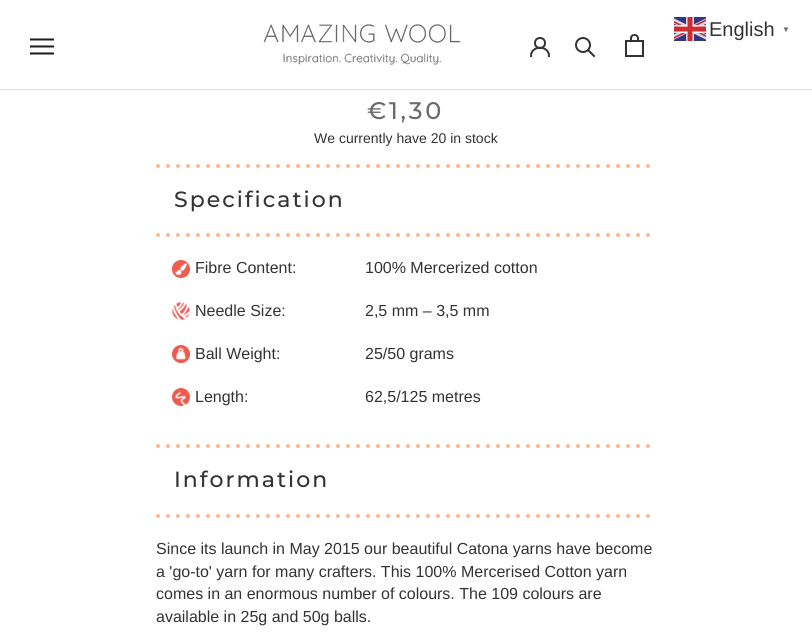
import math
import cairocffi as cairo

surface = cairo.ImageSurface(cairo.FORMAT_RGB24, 812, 638)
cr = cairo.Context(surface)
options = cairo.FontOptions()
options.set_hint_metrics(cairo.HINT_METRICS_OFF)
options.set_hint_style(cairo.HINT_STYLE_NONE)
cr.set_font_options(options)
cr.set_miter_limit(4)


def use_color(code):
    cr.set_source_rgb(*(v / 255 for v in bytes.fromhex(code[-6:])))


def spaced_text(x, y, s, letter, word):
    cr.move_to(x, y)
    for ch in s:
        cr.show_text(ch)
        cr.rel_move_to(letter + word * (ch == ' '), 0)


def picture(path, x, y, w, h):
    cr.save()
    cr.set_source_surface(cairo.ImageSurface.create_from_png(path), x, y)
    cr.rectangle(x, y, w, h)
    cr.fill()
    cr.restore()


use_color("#ffffff")
cr.paint()
picture("img1.png", 674, 17, 32, 24)
cr.select_font_face("Liberation Sans")
cr.set_font_size(20)
use_color("#333333")
cr.move_to(709, 36)
cr.show_text("English")
cr.select_font_face("Liberation Sans", cairo.FONT_SLANT_NORMAL, cairo.FONT_WEIGHT_BOLD)
cr.set_font_size(8)
use_color("#6a6a6a")
cr.move_to(782, 32)
cr.show_text("▼")
use_color("#dddddd")
cr.rectangle(0, 89, 812, 1)
cr.fill()
picture("img2.png", 30, 38, 24, 17)
picture("img3.png", 263, 24, 198, 41)
cr.new_path()
cr.move_to(531, 56)
cr.curve_to(531, 45, 549, 45, 549, 56)
use_color("#333333")
cr.set_line_cap(cairo.LINE_CAP_SQUARE)
cr.stroke()
cr.arc(540, 43, 5, 0, 2 * math.pi)
cr.set_line_cap(cairo.LINE_CAP_BUTT)
cr.stroke()
cr.new_path()
cr.move_to(594, 56)
cr.line_to(588.5, 50.5)
cr.set_line_cap(cairo.LINE_CAP_SQUARE)
cr.stroke()
cr.arc(583, 45, 7, 0, 2 * math.pi)
cr.set_line_cap(cairo.LINE_CAP_BUTT)
cr.stroke()
picture("img4.png", 625, 34, 19, 23)
cr.select_font_face("Montserrat Medium")
cr.set_font_size(24)
use_color("#6a6a6a")
spaced_text(367, 119, "€1,30", 2.75, 0)
cr.select_font_face("Liberation Sans")
cr.set_font_size(14)
use_color("#333333")
cr.move_to(314, 143)
cr.show_text("We currently have 20 in stock")
picture("img5.png", 156, 164, 494, 4)
cr.select_font_face("Montserrat Medium")
cr.set_font_size(22)
spaced_text(174, 207, "Specification", 2, 0)
picture("img5.png", 156, 233, 494, 4)
picture("img6.png", 172, 260, 18, 18)
cr.select_font_face("Liberation Sans")
cr.set_font_size(16)
cr.move_to(195, 273)
cr.show_text("Fibre Content:")
cr.move_to(365, 273)
cr.show_text("100% Mercerized cotton")
picture("img7.png", 172, 302, 18, 18)
cr.move_to(195, 316)
cr.show_text("Needle Size:")
cr.move_to(365, 316)
cr.show_text("2,5 mm – 3,5 mm")
picture("img8.png", 172, 345, 18, 18)
cr.move_to(195, 359)
cr.show_text("Ball Weight:")
cr.move_to(365, 359)
cr.show_text("25/50 grams")
picture("img9.png", 172, 388, 18, 18)
cr.move_to(195, 402)
cr.show_text("Length:")
cr.move_to(365, 402)
cr.show_text("62,5/125 metres")
picture("img5.png", 156, 444, 494, 4)
cr.select_font_face("Montserrat Medium")
cr.set_font_size(22)
spaced_text(174, 487, "Information", 2, 0)
picture("img5.png", 156, 514, 494, 4)
cr.select_font_face("Liberation Sans")
cr.set_font_size(16)
cr.move_to(156, 554)
cr.show_text("Since its launch in May 2015 our beautiful Catona yarns have become")
cr.move_to(156, 577)
cr.show_text("a 'go-to' yarn for many crafters. This 100% Mercerised Cotton yarn")
cr.move_to(156, 599)
cr.show_text("comes in an enormous number of colours. The 109 colours are")
cr.move_to(156, 622)
cr.show_text("available in 25g and 50g balls.")
surface.write_to_png("result.png")
